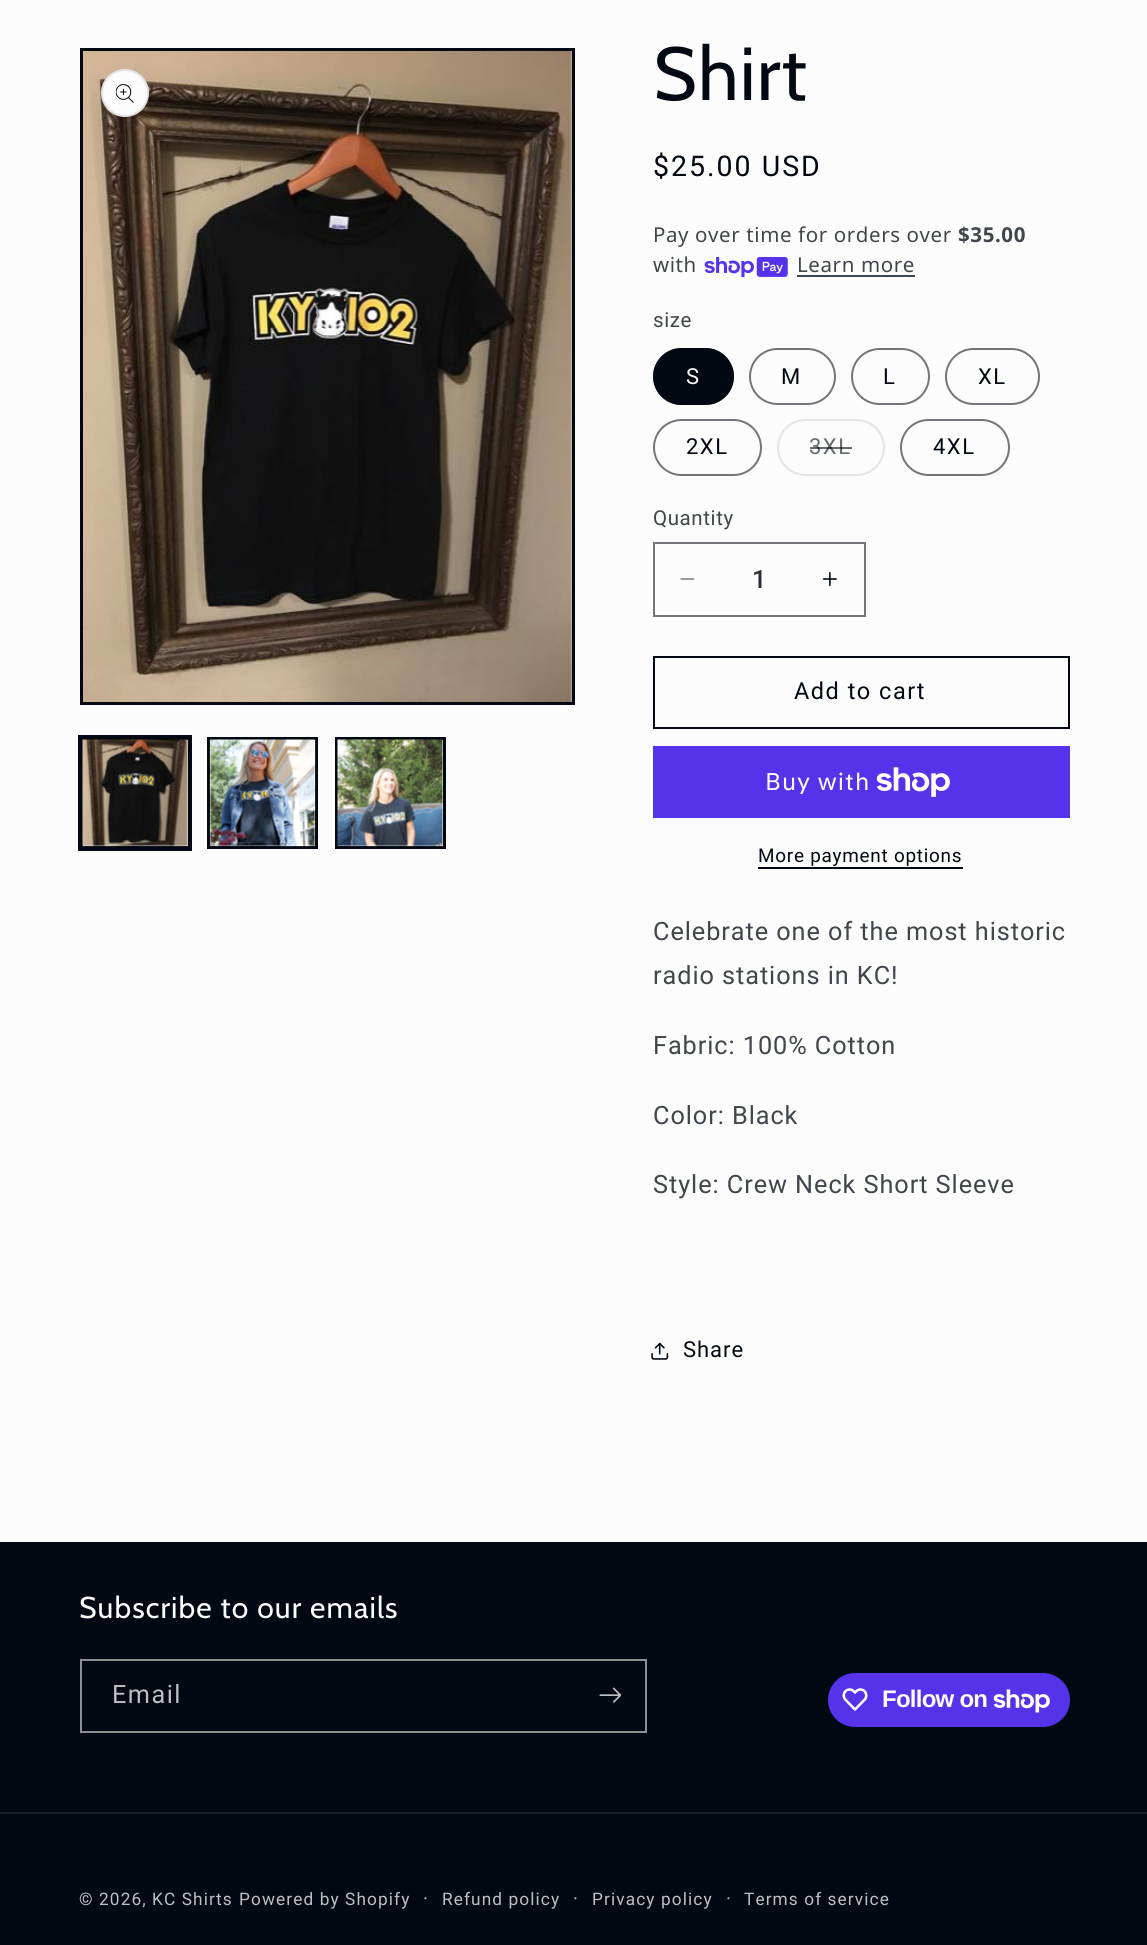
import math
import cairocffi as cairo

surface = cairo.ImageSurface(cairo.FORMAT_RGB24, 1147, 1945)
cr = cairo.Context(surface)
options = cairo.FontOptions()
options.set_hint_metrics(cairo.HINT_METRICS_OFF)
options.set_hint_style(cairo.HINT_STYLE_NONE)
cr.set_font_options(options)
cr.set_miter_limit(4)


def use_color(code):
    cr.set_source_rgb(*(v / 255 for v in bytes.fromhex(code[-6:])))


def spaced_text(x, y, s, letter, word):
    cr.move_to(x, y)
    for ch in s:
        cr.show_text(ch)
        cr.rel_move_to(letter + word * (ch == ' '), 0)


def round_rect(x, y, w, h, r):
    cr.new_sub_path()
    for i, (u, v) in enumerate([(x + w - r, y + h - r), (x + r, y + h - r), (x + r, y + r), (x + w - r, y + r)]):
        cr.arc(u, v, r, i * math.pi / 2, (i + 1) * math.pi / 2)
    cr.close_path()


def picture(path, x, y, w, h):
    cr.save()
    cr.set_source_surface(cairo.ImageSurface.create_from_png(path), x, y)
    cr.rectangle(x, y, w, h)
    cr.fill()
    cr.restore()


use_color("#fcfcfc")
cr.paint()
cr.rectangle(81.5, 49.5, 492, 654)
use_color("#020912")
cr.set_line_width(3)
cr.stroke()
picture("img1.png", 83, 51, 489, 651)
use_color("#fcfcfc")
cr.arc(125, 93, 24, 0, 2 * math.pi)
cr.fill()
cr.arc(125, 93, 23, 0, 2 * math.pi)
cr.set_source_rgba(0.008, 0.035, 0.071, 0.1)
cr.set_line_width(2)
cr.stroke()
picture("img2.png", 116, 84, 18, 19)
cr.rectangle(79, 736, 112, 114)
use_color("#020912")
cr.stroke()
cr.rectangle(81.5, 738.5, 108, 109)
cr.set_line_width(3)
cr.stroke()
picture("img3.png", 82, 739, 106, 108)
cr.rectangle(208.5, 738.5, 108, 109)
cr.stroke()
picture("img4.png", 209, 739, 107, 108)
cr.rectangle(336.5, 738.5, 108, 109)
cr.stroke()
picture("img5.png", 337, 739, 106, 108)
cr.select_font_face("Cabin")
cr.set_font_size(75)
spaced_text(653, 100, "Shirt", 1.1, 0)
cr.select_font_face("Roboto")
cr.set_font_size(28.5)
spaced_text(653, 176, "$25.00 USD", 2, 0)
cr.select_font_face("Noto Sans")
cr.set_font_size(20.5)
use_color("#41464d")
spaced_text(653, 242, "Pay over time for orders over", 0.6, 0)
cr.select_font_face("Noto Sans", cairo.FONT_SLANT_NORMAL, cairo.FONT_WEIGHT_BOLD)
spaced_text(958, 242, "$35.00", 0.6, 0)
cr.select_font_face("Noto Sans")
spaced_text(653, 272, "with", 0.6, 0)
picture("img6.png", 704, 257, 84, 21)
spaced_text(797, 272, "Learn more", 0.6, 0)
cr.rectangle(797, 275, 118, 2)
cr.fill()
cr.select_font_face("Roboto")
spaced_text(653, 327, "size", 0.6, 0)
use_color("#020912")
round_rect(653, 348, 81, 57, 28.5)
cr.fill()
round_rect(654, 349, 79, 55, 27.5)
cr.set_source_rgba(0.008, 0.035, 0.071, 0.55)
cr.set_line_width(2)
cr.stroke()
cr.set_font_size(22)
use_color("#fcfcfc")
spaced_text(686, 384, "S", 1.5, 0)
round_rect(750, 349, 85, 55, 27.5)
use_color("#72767b")
cr.stroke()
use_color("#020912")
spaced_text(781, 384, "M", 1.5, 0)
round_rect(852, 349, 77, 55, 27.5)
use_color("#72767b")
cr.stroke()
use_color("#020912")
spaced_text(883, 384, "L", 1.5, 0)
round_rect(946, 349, 93, 55, 27.5)
use_color("#72767b")
cr.stroke()
use_color("#020912")
spaced_text(978, 384, "XL", 1.5, 0)
round_rect(654, 420, 107, 55, 27.5)
use_color("#72767b")
cr.stroke()
use_color("#020912")
spaced_text(686, 454, "2XL", 1.5, 0)
round_rect(778, 420, 106, 55, 27.5)
use_color("#e3e4e5")
cr.stroke()
use_color("#666a70")
spaced_text(809, 454, "3XL", 1.5, 0)
cr.set_source_rgba(0.008, 0.035, 0.071, 0.6)
cr.rectangle(810, 447, 42, 2)
cr.fill()
round_rect(901, 420, 108, 55, 27.5)
use_color("#72767b")
cr.stroke()
use_color("#020912")
spaced_text(933, 454, "4XL", 1.5, 0)
cr.set_font_size(20.5)
use_color("#41464d")
spaced_text(653, 525, "Quantity", 0.6, 0)
picture("img7.png", 680, 578, 15, 2)
picture("img8.png", 822, 572, 15, 14)
cr.rectangle(654, 543, 211, 73)
use_color("#72767b")
cr.stroke()
cr.select_font_face("Roboto Medium")
cr.set_font_size(25.25)
use_color("#282d35")
cr.move_to(752, 588)
cr.show_text("1")
cr.rectangle(654, 657, 415, 71)
use_color("#020912")
cr.stroke()
cr.select_font_face("Roboto")
cr.set_font_size(23.5)
spaced_text(794, 699, "Add to cart", 1.5, 0)
use_color("#5433eb")
cr.rectangle(653, 746, 417, 72)
cr.fill()
cr.select_font_face("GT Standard")
cr.set_font_size(24)
use_color("#fcfcfc")
spaced_text(765, 790, "Buy with", 0.95, 0)
picture("img9.png", 876, 767, 74, 30)
cr.select_font_face("Roboto")
cr.set_font_size(18.9)
use_color("#020912")
spaced_text(758, 862, "More payment options", 0.75, 0)
cr.rectangle(758, 867, 205, 2)
cr.fill()
cr.set_font_size(25.25)
use_color("#41464d")
spaced_text(653, 940, "Celebrate one of the most historic", 0.95, 0)
spaced_text(653, 984, "radio stations in KC!", 0.95, 0)
spaced_text(653, 1054, "Fabric: 100% Cotton", 0.95, 0)
spaced_text(653, 1124, "Color: Black", 0.95, 0)
spaced_text(653, 1193, "Style: Crew Neck Short Sleeve", 0.95, 0)
picture("img10.png", 651, 1342, 18, 18)
cr.set_font_size(22)
use_color("#020912")
spaced_text(683, 1357, "Share", 0.95, 0)
cr.rectangle(0, 1542, 1147, 403)
cr.fill()
cr.select_font_face("Cabin")
cr.set_font_size(30)
use_color("#fcfcfc")
spaced_text(79, 1618, "Subscribe to our emails", 1.1, 0)
cr.rectangle(81, 1660, 565, 72)
use_color("#8c8f93")
cr.stroke()
cr.select_font_face("Roboto")
cr.set_font_size(25.25)
use_color("#bebfc2")
spaced_text(112, 1703, "Email", 1.5, 0)
picture("img11.png", 599, 1687, 22, 16)
use_color("#5433eb")
round_rect(828, 1673, 242, 54, 27)
cr.fill()
picture("img12.png", 842, 1688, 26, 23)
cr.select_font_face("Liberation Sans", cairo.FONT_SLANT_NORMAL, cairo.FONT_WEIGHT_BOLD)
cr.set_font_size(24)
use_color("#fcfcfc")
spaced_text(882, 1707, "Follow on", -0.75, 0)
picture("img13.png", 993, 1689, 57, 24)
use_color("#161c25")
cr.rectangle(0, 1812, 1147, 2)
cr.fill()
cr.select_font_face("Roboto")
cr.set_font_size(17.25)
use_color("#bebfc2")
spaced_text(79, 1905, "© 2026, KC Shirts", 1.1, 0)
spaced_text(239, 1905, "Powered by Shopify", 1.1, 0)
cr.set_font_size(18.9)
spaced_text(423, 1905, "·", 1.1, 0)
cr.set_font_size(17.25)
spaced_text(442, 1905, "Refund policy", 1.1, 0)
cr.set_font_size(18.9)
spaced_text(573, 1905, "·", 1.1, 0)
cr.set_font_size(17.25)
spaced_text(592, 1905, "Privacy policy", 1.1, 0)
cr.set_font_size(18.9)
spaced_text(726, 1905, "·", 1.1, 0)
cr.set_font_size(17.25)
spaced_text(744, 1905, "Terms of service", 1.1, 0)
surface.write_to_png("result.png")
